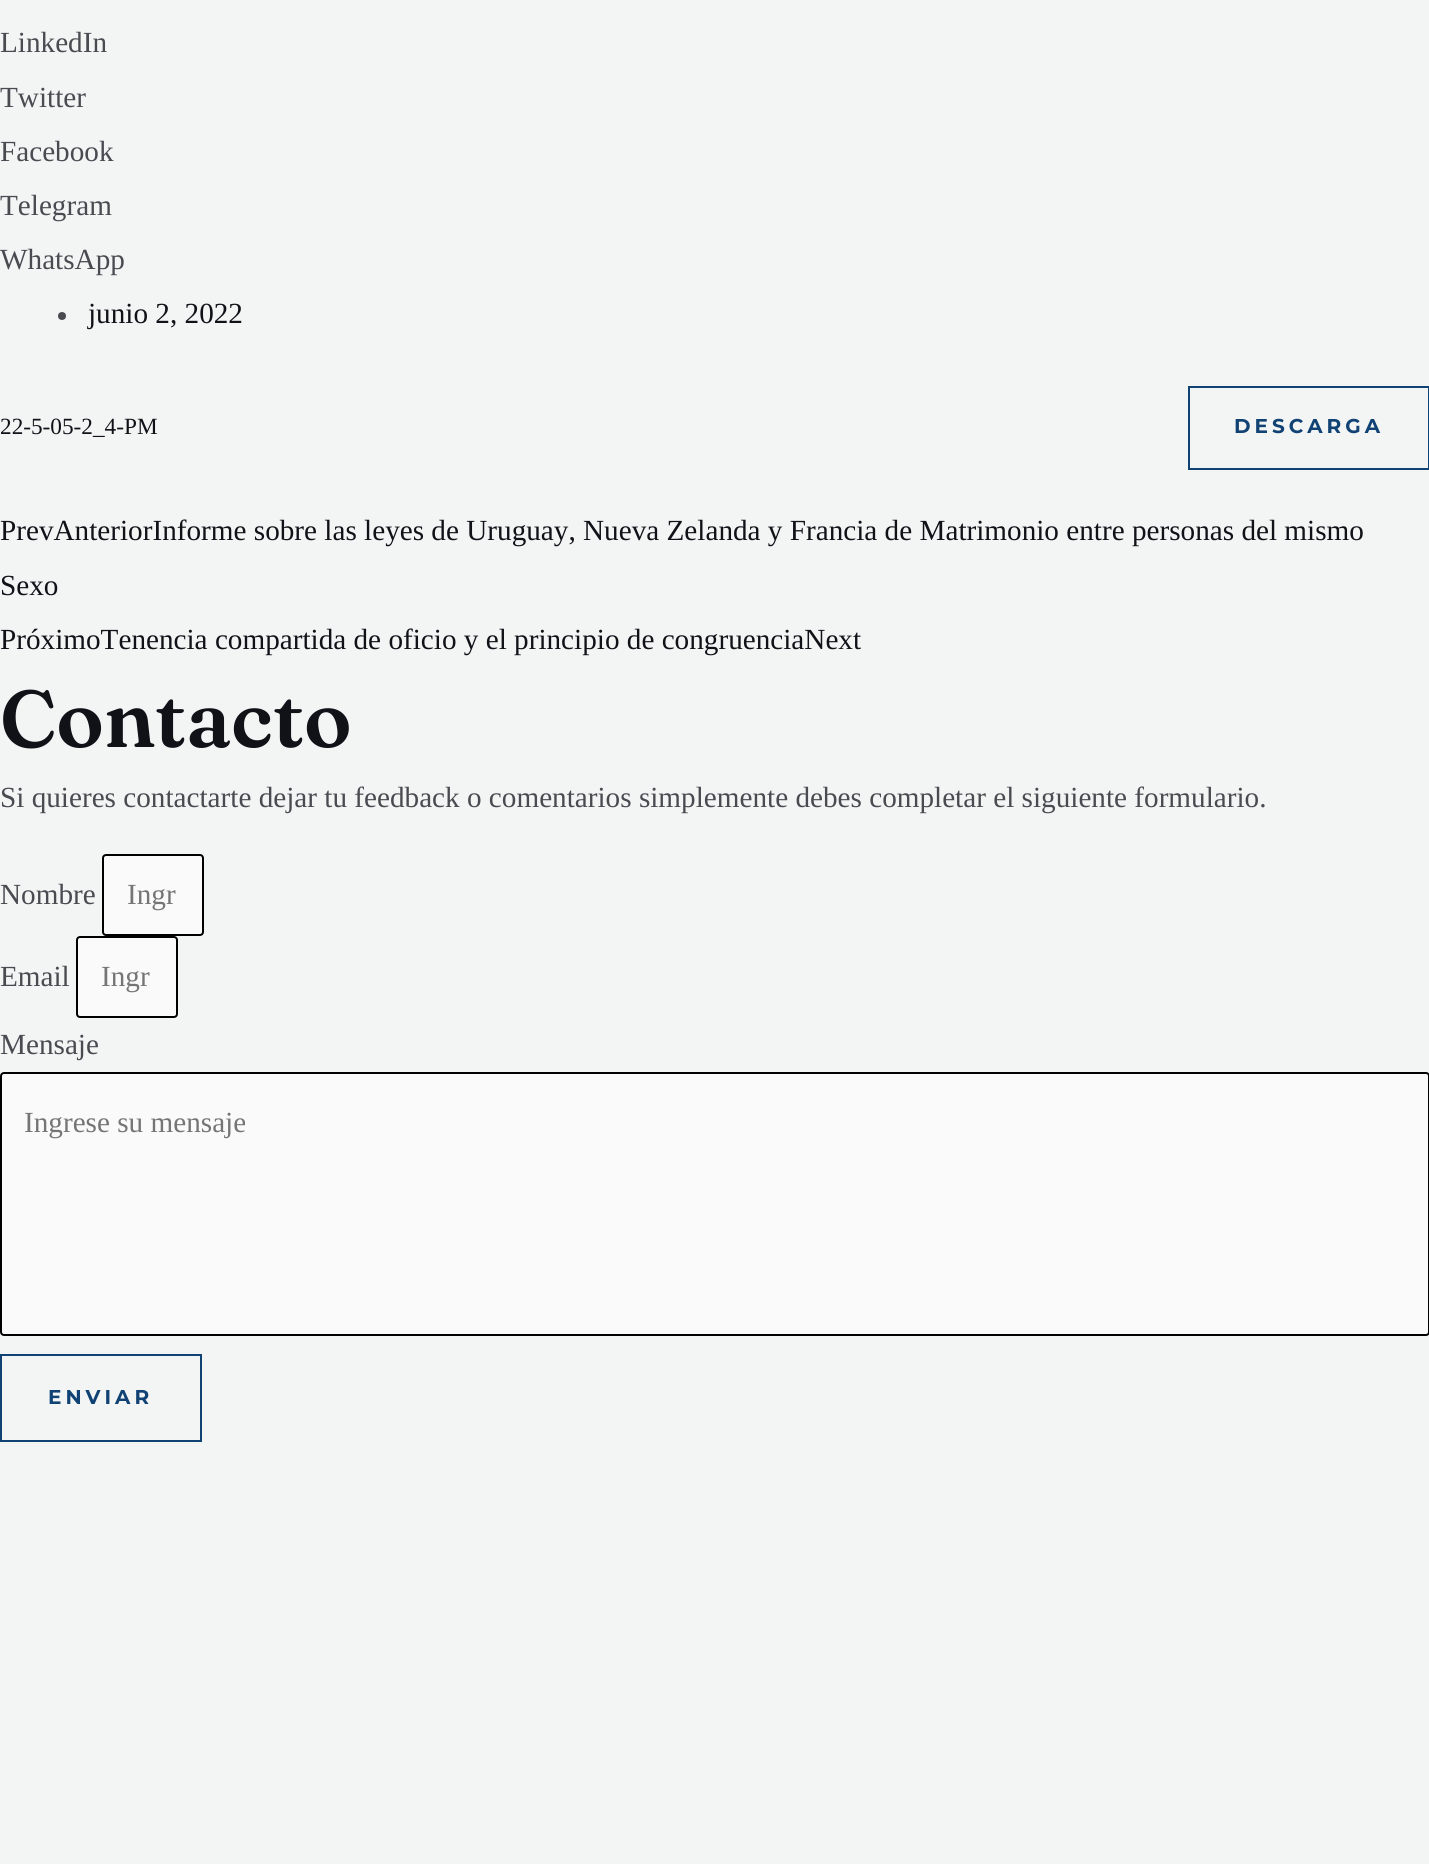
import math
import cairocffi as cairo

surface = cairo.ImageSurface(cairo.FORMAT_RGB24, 1429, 1864)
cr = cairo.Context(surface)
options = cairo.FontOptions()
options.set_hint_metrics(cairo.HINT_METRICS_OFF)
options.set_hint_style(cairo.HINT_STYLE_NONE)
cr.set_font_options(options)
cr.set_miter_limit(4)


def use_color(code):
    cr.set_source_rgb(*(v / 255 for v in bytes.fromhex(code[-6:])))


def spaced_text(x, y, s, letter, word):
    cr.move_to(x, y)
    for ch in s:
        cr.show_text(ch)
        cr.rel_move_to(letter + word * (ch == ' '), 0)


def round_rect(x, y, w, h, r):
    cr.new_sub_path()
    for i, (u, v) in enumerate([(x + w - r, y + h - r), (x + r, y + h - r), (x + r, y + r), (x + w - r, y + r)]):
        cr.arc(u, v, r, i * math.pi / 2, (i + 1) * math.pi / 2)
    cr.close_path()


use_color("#f3f5f5")
cr.paint()
cr.select_font_face("Liberation Serif")
cr.set_font_size(29.2)
use_color("#494b51")
cr.move_to(0, 52)
cr.show_text("LinkedIn")
cr.move_to(0, 107)
cr.show_text("Twitter")
cr.move_to(0, 161)
cr.show_text("Facebook")
cr.move_to(0, 215)
cr.show_text("Telegram")
cr.move_to(0, 269)
cr.show_text("WhatsApp")
cr.new_path()
cr.arc(62, 316, 4, 0, 2 * math.pi)
cr.fill()
use_color("#101218")
cr.move_to(88, 323)
cr.show_text("junio 2, 2022")
cr.set_font_size(23.25)
cr.move_to(0, 434)
cr.show_text("22-5-05-2_4-PM")
cr.rectangle(1189, 387, 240, 82)
use_color("#104274")
cr.stroke()
cr.select_font_face("Montserrat Thin")
cr.set_font_size(20)
spaced_text(1234, 433, "DESCARGA", 4, 0)
cr.select_font_face("Liberation Serif")
cr.set_font_size(29.2)
use_color("#101218")
cr.move_to(0, 540)
cr.show_text("PrevAnteriorInforme sobre las leyes de Uruguay, Nueva Zelanda y Francia de Matrimonio entre personas del mismo")
cr.move_to(0, 595)
cr.show_text("Sexo")
cr.move_to(0, 649)
cr.show_text("PróximoTenencia compartida de oficio y el principio de congruenciaNext")
cr.select_font_face("Fraunces SemiBold")
cr.set_font_size(80)
cr.move_to(0, 747)
cr.show_text("Contacto")
cr.select_font_face("Liberation Serif")
cr.set_font_size(29.2)
use_color("#494b51")
cr.move_to(0, 807)
cr.show_text("Si quieres contactarte dejar tu feedback o comentarios simplemente debes completar el siguiente formulario.")
cr.move_to(0, 904)
cr.show_text("Nombre")
use_color("#fafafa")
round_rect(103, 855, 100, 80, 3)
cr.fill_preserve()
use_color("#000000")
cr.stroke()
use_color("#757575")
cr.move_to(127, 904)
cr.show_text("Ingr")
use_color("#494b51")
cr.move_to(0, 986)
cr.show_text("Email")
use_color("#fafafa")
round_rect(77, 937, 100, 80, 3)
cr.fill_preserve()
use_color("#000000")
cr.stroke()
use_color("#757575")
cr.move_to(101, 986)
cr.show_text("Ingr")
use_color("#494b51")
cr.move_to(0, 1054)
cr.show_text("Mensaje")
use_color("#fafafa")
round_rect(1, 1073, 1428, 262, 3)
cr.fill_preserve()
use_color("#000000")
cr.stroke()
use_color("#757575")
cr.move_to(24, 1132)
cr.show_text("Ingrese su mensaje")
cr.rectangle(1, 1355, 200, 86)
use_color("#104274")
cr.stroke()
cr.select_font_face("Montserrat Thin")
cr.set_font_size(20)
spaced_text(48, 1404, "ENVIAR", 4, 0)
surface.write_to_png("result.png")
